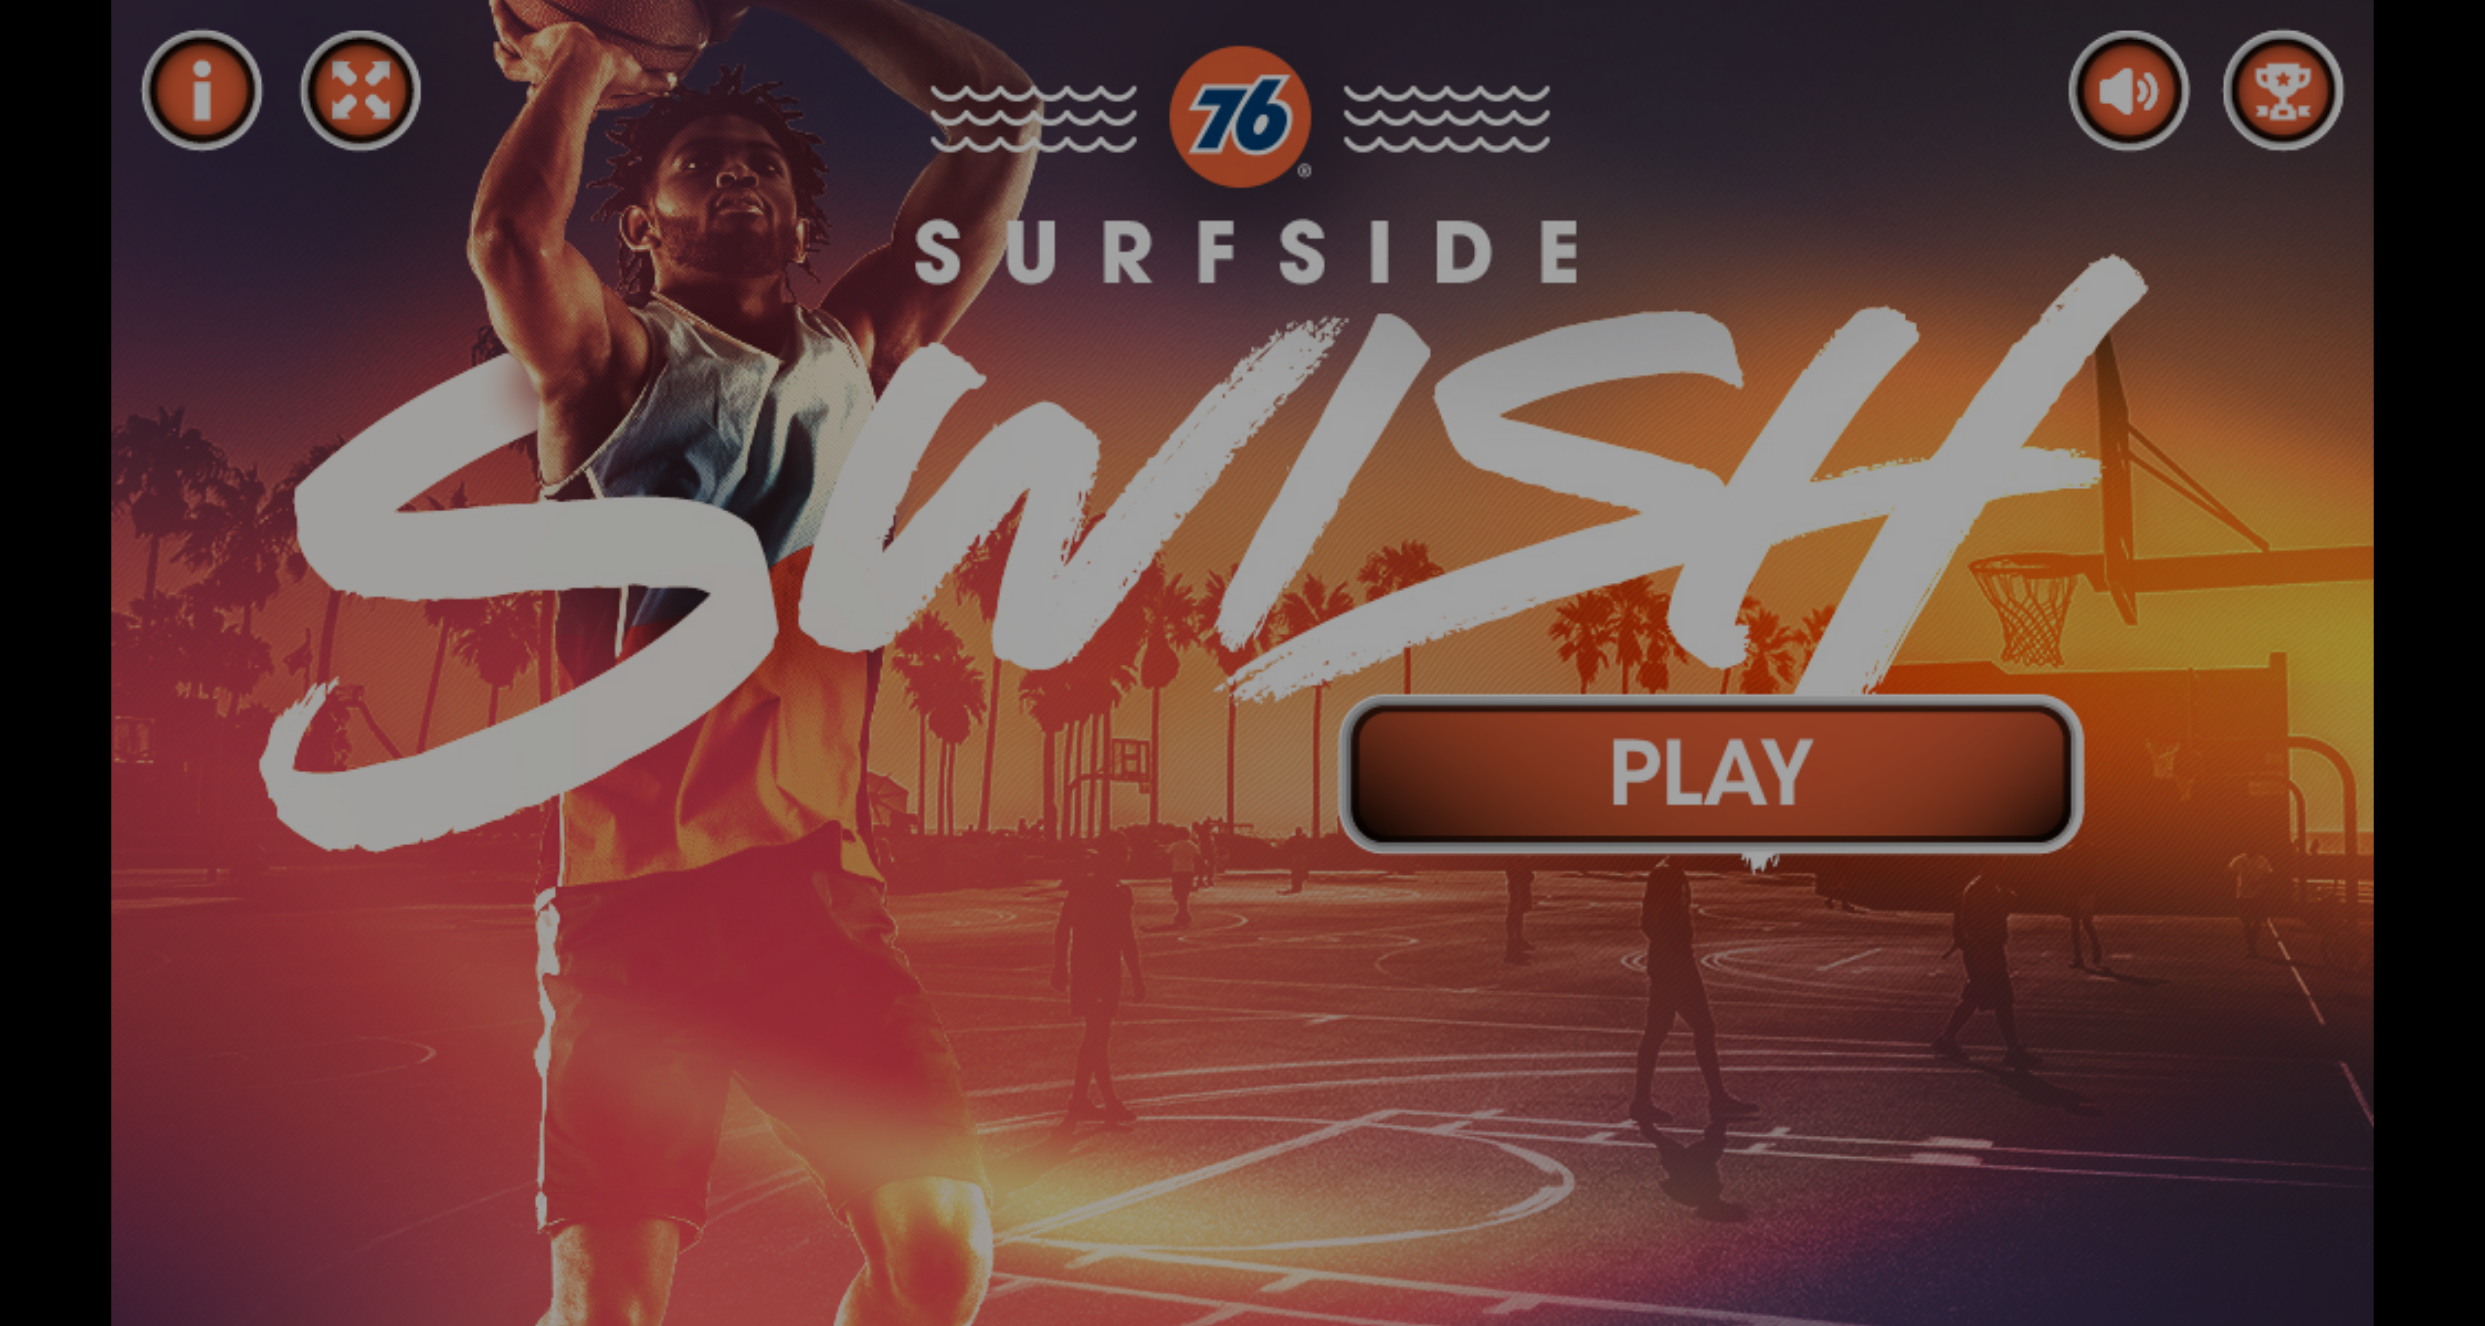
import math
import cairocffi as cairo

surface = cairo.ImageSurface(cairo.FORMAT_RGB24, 2485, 1326)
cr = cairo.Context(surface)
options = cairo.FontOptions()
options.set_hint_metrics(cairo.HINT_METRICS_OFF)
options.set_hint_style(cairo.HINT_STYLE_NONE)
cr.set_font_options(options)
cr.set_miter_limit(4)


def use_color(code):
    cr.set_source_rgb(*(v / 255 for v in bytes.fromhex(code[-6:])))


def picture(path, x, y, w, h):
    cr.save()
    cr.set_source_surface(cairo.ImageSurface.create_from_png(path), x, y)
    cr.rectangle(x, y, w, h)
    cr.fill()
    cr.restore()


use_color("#000000")
cr.paint()
picture("img1.png", 111, 0, 2263, 1326)
surface.write_to_png("result.png")
